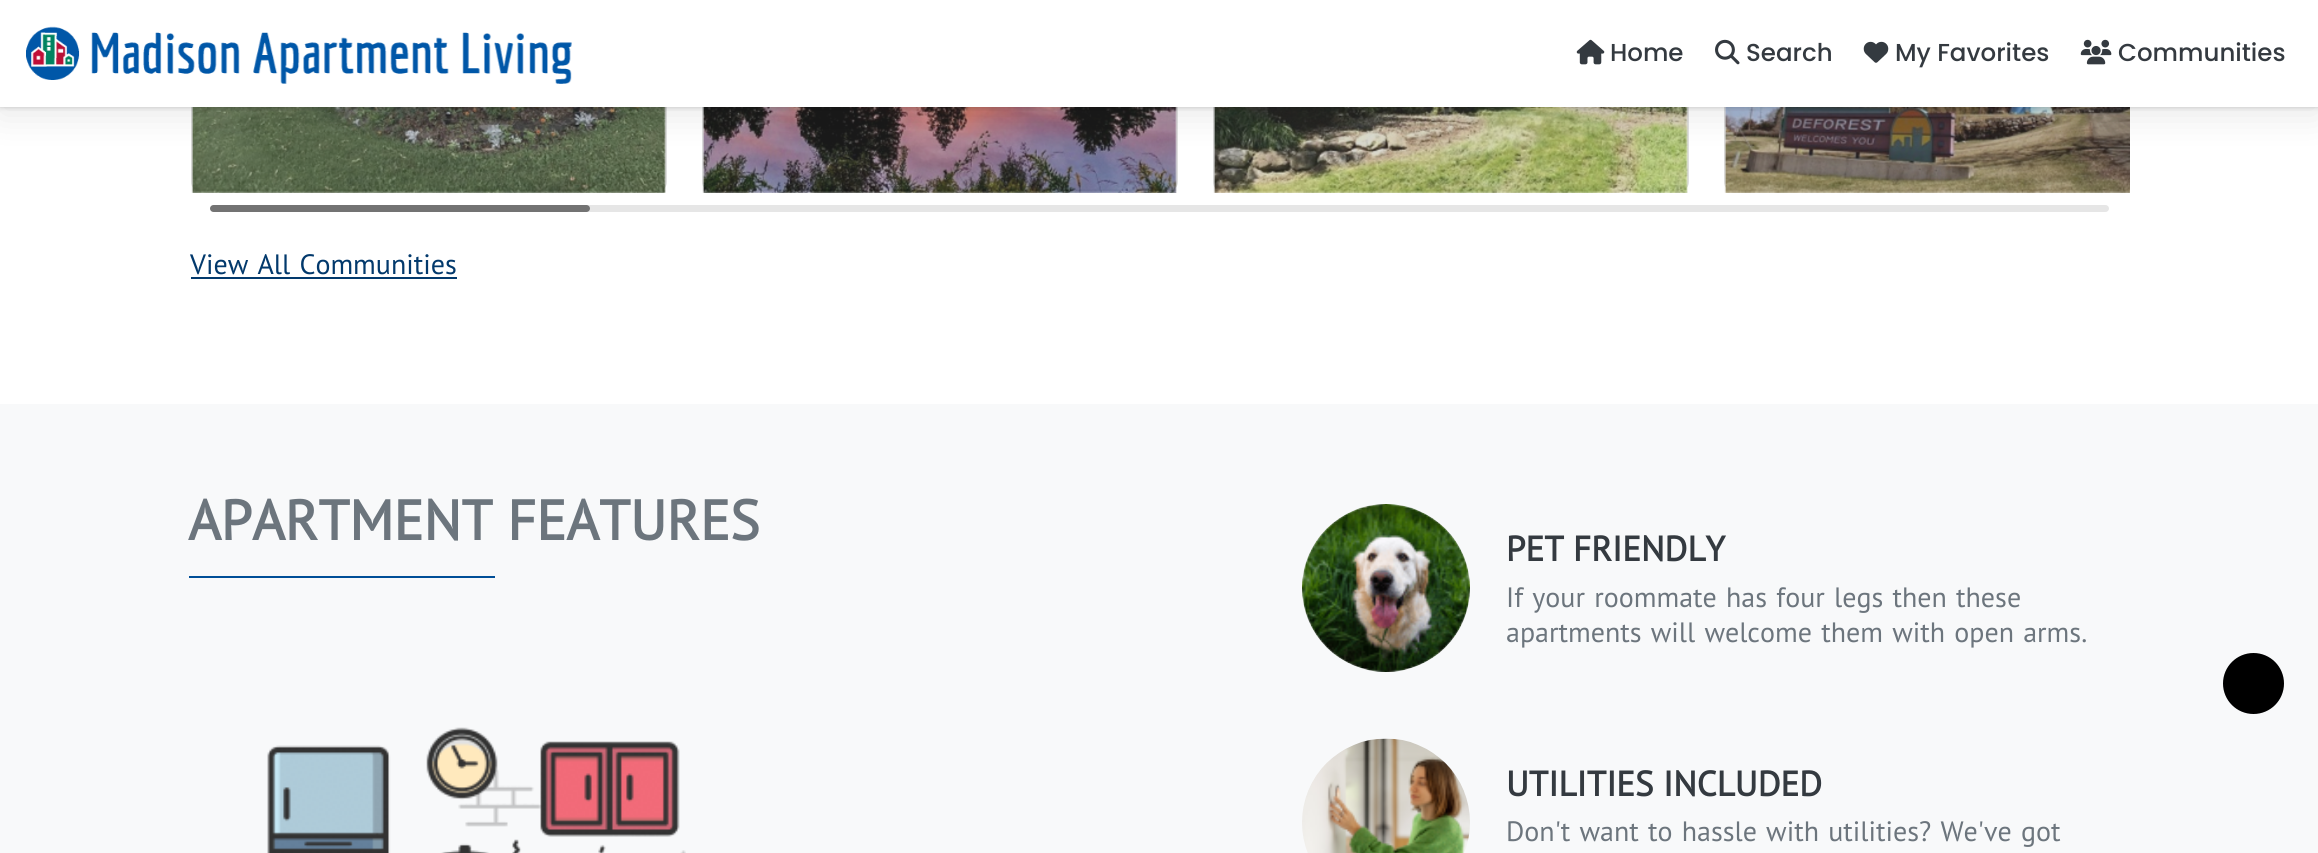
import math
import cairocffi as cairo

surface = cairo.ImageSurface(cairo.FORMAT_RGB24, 2318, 853)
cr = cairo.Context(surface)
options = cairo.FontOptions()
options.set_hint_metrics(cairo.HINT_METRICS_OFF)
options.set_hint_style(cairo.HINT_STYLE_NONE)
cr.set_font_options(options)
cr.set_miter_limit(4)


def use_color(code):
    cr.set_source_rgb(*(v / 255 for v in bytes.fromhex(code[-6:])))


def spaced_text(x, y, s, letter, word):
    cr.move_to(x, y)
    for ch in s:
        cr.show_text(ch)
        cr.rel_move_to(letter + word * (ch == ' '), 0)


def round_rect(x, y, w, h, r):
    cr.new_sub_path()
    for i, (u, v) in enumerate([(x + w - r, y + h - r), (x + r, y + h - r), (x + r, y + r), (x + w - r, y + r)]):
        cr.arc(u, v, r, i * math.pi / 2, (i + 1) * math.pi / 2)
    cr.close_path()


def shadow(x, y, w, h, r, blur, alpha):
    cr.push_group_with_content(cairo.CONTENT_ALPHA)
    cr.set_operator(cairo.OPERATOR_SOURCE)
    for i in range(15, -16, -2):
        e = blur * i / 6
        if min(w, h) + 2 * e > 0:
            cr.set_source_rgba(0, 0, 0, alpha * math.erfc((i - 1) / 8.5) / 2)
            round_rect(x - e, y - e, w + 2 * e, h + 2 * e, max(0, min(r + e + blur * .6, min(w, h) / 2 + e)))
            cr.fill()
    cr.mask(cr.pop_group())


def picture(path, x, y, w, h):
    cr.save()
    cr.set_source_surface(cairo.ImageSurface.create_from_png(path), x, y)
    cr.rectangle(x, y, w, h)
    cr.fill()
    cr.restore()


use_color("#ffffff")
cr.paint()
round_rect(192, -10, 474, 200, 8)
use_color("#dfdfdf")
cr.stroke()
picture("img6.png", 191, 107, 475, 86)
round_rect(703, -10, 474, 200, 8)
cr.stroke()
picture("img7.png", 702, 107, 475, 86)
round_rect(1214, -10, 474, 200, 8)
cr.stroke()
picture("img8.png", 1213, 107, 475, 86)
cr.save()
cr.rectangle(191, 0, 1939, 219)
cr.clip()
round_rect(1725, -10, 474, 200, 8)
cr.stroke()
cr.restore()
picture("img9.png", 1724, 107, 406, 86)
use_color("#000000")
shadow(0, 7, 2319, 107, 0, 17.5, 0.1)
shadow(0, 0, 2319, 107, 0, 2.5, 0.2)
use_color("#ffffff")
cr.rectangle(0, 0, 2318, 107)
cr.fill()
picture("img1.png", 26, 26, 546, 58)
picture("img2.png", 1576, 39, 29, 26)
cr.select_font_face("Poppins Medium")
cr.set_font_size(24.5)
use_color("#343a40")
cr.move_to(1610, 61)
cr.show_text("Home")
picture("img3.png", 1715, 39, 25, 26)
cr.move_to(1746, 61)
cr.show_text("Search")
picture("img4.png", 1863, 41, 26, 22)
cr.move_to(1895, 61)
cr.show_text("My Favorites")
picture("img5.png", 2080, 39, 32, 26)
cr.move_to(2118, 61)
cr.show_text("Communities")
use_color("#e6e6e6")
round_rect(210, 205, 1899, 7, 3.5)
cr.fill()
cr.set_source_rgba(0, 0, 0, 0.5)
round_rect(210, 205, 380, 7, 3.5)
cr.fill()
cr.select_font_face("PT Sans")
cr.set_font_size(28)
use_color("#02396c")
spaced_text(190, 274, "View All Communities", 0, 1.75)
cr.rectangle(191, 277, 266, 2)
cr.fill()
use_color("#f8f9fa")
cr.rectangle(0, 404, 2318, 449)
cr.fill()
cr.select_font_face("PT Sans", cairo.FONT_SLANT_NORMAL, cairo.FONT_WEIGHT_BOLD)
cr.set_font_size(56)
use_color("#6c757d")
cr.move_to(188, 540)
cr.show_text("APARTMENT FEATURES")
use_color("#004e97")
cr.rectangle(189, 576, 306, 2)
cr.fill()
picture("img10.png", 267, 727, 419, 126)
picture("img11.png", 1302, 504, 168, 168)
cr.set_font_size(35)
use_color("#343a40")
cr.move_to(1506, 561)
cr.show_text("PET FRIENDLY")
cr.select_font_face("PT Sans")
cr.set_font_size(28)
use_color("#6c757d")
spaced_text(1506, 607, "If your roommate has four legs then these", 0, 1.75)
spaced_text(1506, 642, "apartments will welcome them with open arms.", 0, 1.75)
picture("img12.png", 1302, 738, 168, 115)
cr.select_font_face("PT Sans", cairo.FONT_SLANT_NORMAL, cairo.FONT_WEIGHT_BOLD)
cr.set_font_size(35)
use_color("#343a40")
cr.move_to(1506, 796)
cr.show_text("UTILITIES INCLUDED")
cr.select_font_face("PT Sans")
cr.set_font_size(28)
use_color("#6c757d")
spaced_text(1506, 841, "Don't want to hassle with utilities? We've got", 0, 1.75)
use_color("#000000")
cr.new_path()
cr.arc(2253.5, 683.5, 29.5, 0, 2 * math.pi)
cr.fill_preserve()
cr.stroke()
surface.write_to_png("result.png")
